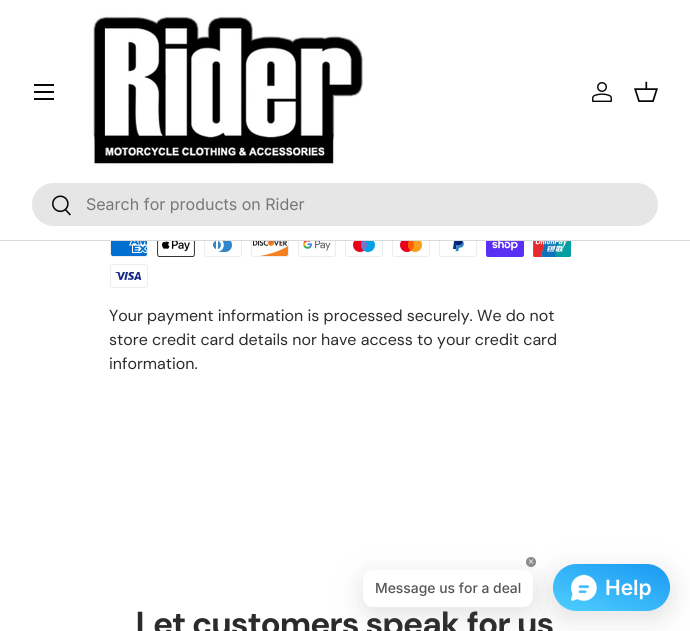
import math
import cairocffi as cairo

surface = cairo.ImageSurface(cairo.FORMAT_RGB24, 690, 631)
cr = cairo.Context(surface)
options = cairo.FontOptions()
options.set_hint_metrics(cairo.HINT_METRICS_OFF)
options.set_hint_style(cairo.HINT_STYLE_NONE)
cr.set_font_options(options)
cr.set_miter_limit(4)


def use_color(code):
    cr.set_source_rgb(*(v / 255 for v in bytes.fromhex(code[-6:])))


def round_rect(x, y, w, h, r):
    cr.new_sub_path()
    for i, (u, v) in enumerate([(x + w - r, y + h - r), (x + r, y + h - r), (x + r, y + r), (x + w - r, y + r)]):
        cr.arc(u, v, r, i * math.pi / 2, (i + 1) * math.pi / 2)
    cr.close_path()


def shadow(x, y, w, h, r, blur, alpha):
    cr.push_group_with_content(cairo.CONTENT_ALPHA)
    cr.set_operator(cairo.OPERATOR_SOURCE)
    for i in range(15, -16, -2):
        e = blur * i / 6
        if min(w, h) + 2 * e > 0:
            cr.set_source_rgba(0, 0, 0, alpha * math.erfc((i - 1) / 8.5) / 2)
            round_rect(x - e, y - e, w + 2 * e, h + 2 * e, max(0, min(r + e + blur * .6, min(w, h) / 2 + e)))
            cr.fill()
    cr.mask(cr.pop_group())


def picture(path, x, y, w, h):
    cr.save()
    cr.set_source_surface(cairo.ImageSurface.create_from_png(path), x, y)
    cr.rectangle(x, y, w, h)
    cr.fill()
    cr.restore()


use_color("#ffffff")
cr.paint()
use_color("#dadada")
cr.rectangle(0, 240, 690, 1)
cr.fill()
use_color("#070707")
cr.rectangle(34, 84, 20, 2)
cr.fill()
cr.rectangle(34, 98, 20, 2)
cr.fill()
cr.rectangle(34, 91, 20, 2)
cr.fill()
picture("img1.png", 92, 15, 272, 151)
picture("img2.png", 592, 82, 20, 20)
picture("img3.png", 634, 81, 24, 21)
use_color("#e6e6e6")
round_rect(32, 183, 626, 43, 21.5)
cr.fill()
picture("img4.png", 52, 195, 19, 21)
cr.select_font_face("Inter")
cr.set_font_size(16)
use_color("#777777")
cr.move_to(86, 210)
cr.show_text("Search for products on Rider")
picture("img5.png", 110, 241, 38, 16)
picture("img6.png", 157, 241, 38, 16)
picture("img7.png", 204, 241, 38, 16)
picture("img8.png", 251, 241, 38, 16)
picture("img9.png", 298, 241, 38, 16)
picture("img10.png", 345, 241, 38, 16)
picture("img11.png", 392, 241, 38, 16)
picture("img12.png", 439, 241, 38, 16)
picture("img13.png", 486, 241, 38, 16)
picture("img14.png", 533, 241, 38, 16)
picture("img15.png", 110, 264, 38, 24)
cr.select_font_face("DM Sans")
use_color("#2a2b2a")
cr.move_to(109, 321)
cr.show_text("Your payment information is processed securely. We do not")
cr.move_to(109, 345)
cr.show_text("store credit card details nor have access to your credit card")
cr.move_to(109, 369)
cr.show_text("information.")
cr.select_font_face("DM Sans", cairo.FONT_SLANT_NORMAL, cairo.FONT_WEIGHT_BOLD)
cr.set_font_size(33.25)
cr.move_to(136, 635)
cr.show_text("Let customers speak for us")
use_color("#64646f")
shadow(553, 571, 117, 47, 23.5, 14.5, 0.2)
gradient = cairo.LinearGradient(625, 548, 598, 627)
gradient.add_color_stop_rgba(0, 0.098, 0.596, 0.949, 1)
gradient.add_color_stop_rgba(1, 0.314, 0.812, 1, 1)
cr.set_source(gradient)
round_rect(553, 564, 117, 47, 23.5)
cr.fill()
cr.new_path()
cr.move_to(611.5, 564)
cr.curve_to(644, 564, 670, 574.5, 670, 587.5)
cr.curve_to(670, 600.5, 644, 611, 611.5, 611)
cr.curve_to(579, 611, 553, 600.5, 553, 587.5)
cr.curve_to(553, 574.5, 579, 564, 611.5, 564)
cr.close_path()
cr.fill()
picture("img17.png", 571, 574, 26, 27)
use_color("#64646f")
shadow(363, 577, 170, 37, 10, 14.5, 0.2)
use_color("#ffffff")
round_rect(363, 570, 170, 37, 10)
cr.fill()
cr.set_source_rgba(0.188, 0.188, 0.188, 0.55)
cr.arc(531, 562, 5, 0, 2 * math.pi)
cr.fill()
picture("img16.png", 528, 559, 6, 5)
cr.select_font_face("Inter Medium")
cr.set_font_size(13.9)
use_color("#555555")
cr.move_to(375, 593)
cr.show_text("Message us for a deal")
cr.select_font_face("Inter SemiBold")
cr.set_font_size(21)
use_color("#ffffff")
cr.move_to(605, 595)
cr.show_text("Help")
surface.write_to_png("result.png")
